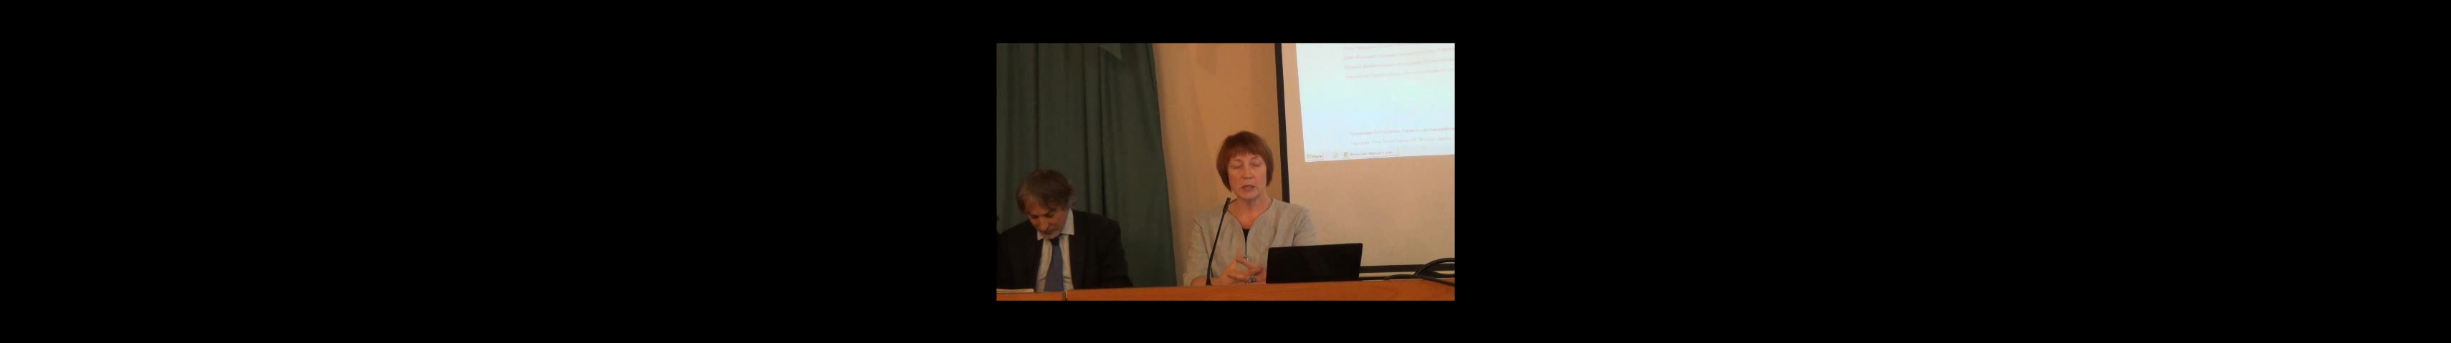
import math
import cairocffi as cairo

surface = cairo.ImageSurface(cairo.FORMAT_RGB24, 2451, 343)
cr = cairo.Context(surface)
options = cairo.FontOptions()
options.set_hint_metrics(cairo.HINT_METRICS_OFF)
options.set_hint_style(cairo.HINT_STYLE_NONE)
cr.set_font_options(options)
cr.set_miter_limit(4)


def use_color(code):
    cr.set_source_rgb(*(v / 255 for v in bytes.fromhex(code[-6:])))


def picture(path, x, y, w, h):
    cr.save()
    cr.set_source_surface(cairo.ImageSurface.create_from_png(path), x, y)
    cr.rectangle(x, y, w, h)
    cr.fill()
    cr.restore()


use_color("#000000")
cr.paint()
picture("img1.png", 996, 35, 459, 269)
surface.write_to_png("result.png")
